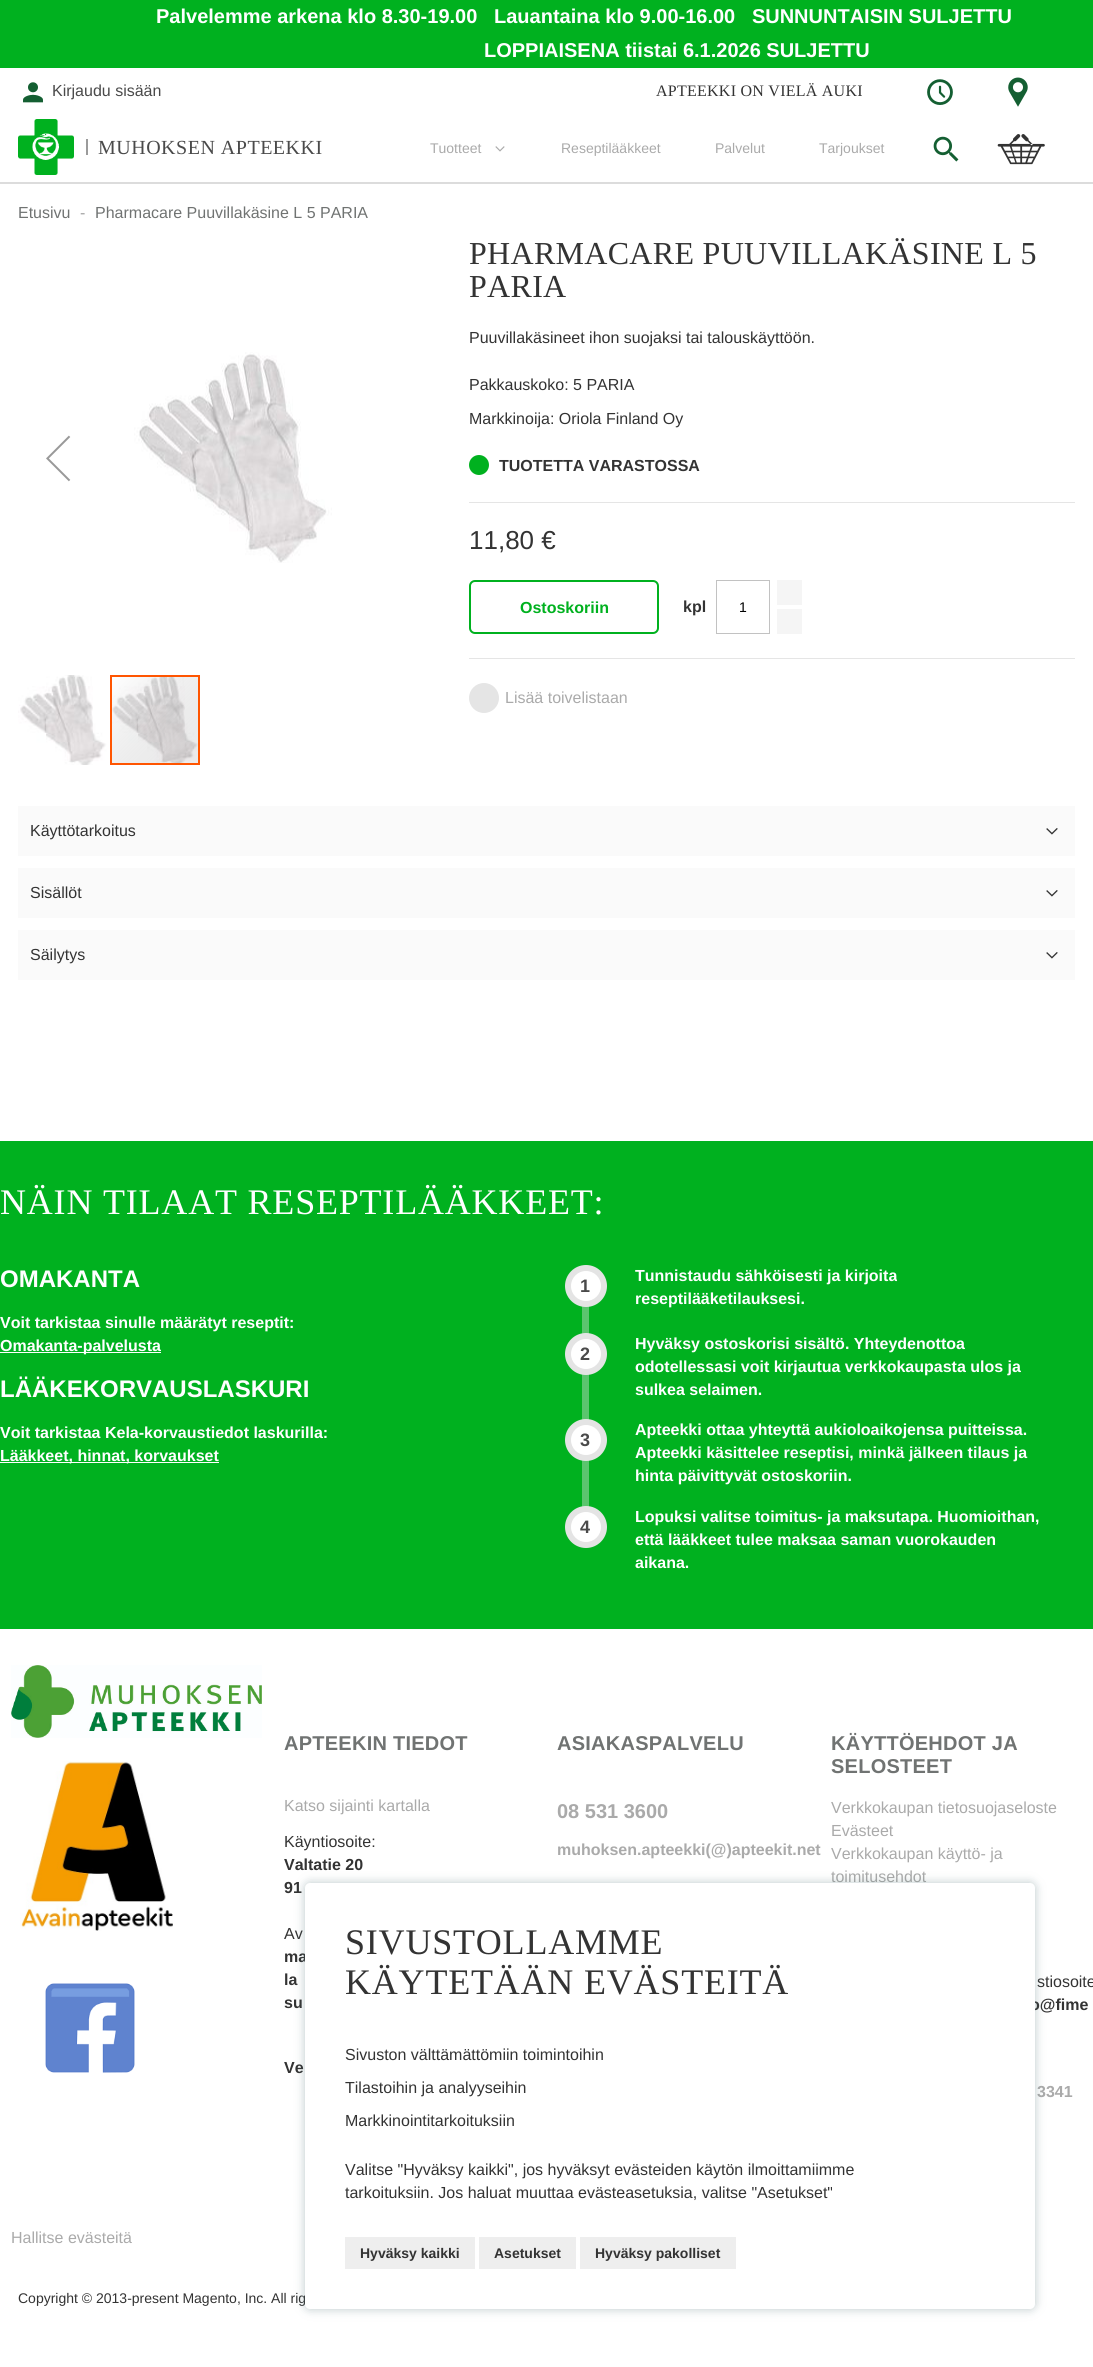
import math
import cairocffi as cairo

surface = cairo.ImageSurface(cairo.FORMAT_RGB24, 1093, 2367)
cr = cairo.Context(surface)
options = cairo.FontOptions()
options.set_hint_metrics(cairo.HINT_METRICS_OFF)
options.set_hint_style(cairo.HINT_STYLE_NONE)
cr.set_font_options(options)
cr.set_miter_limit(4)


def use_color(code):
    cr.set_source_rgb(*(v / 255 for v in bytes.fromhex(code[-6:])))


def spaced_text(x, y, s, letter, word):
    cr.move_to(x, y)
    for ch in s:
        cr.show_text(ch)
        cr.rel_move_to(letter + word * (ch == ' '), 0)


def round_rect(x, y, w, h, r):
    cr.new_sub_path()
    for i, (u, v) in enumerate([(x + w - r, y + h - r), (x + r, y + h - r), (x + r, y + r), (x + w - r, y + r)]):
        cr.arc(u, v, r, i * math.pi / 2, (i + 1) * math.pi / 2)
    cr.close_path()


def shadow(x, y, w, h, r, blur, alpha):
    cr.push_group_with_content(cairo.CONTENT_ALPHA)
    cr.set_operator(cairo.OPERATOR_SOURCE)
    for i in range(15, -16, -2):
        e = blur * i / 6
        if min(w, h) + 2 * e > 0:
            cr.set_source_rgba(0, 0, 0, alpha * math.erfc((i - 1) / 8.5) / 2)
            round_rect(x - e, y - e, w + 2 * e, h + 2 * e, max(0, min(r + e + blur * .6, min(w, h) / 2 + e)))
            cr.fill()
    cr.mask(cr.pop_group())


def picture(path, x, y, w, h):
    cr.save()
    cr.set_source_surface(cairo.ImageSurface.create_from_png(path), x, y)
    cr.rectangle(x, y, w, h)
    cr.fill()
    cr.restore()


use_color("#ffffff")
cr.paint()
use_color("#dcdcdc")
cr.rectangle(0, 182, 1093, 2)
cr.fill()
use_color("#00b11f")
cr.rectangle(0, 0, 1093, 68)
cr.fill()
cr.select_font_face("Liberation Sans", cairo.FONT_SLANT_NORMAL, cairo.FONT_WEIGHT_BOLD)
cr.set_font_size(20)
use_color("#ffffff")
cr.move_to(156, 23)
cr.show_text("Palvelemme arkena klo 8.30-19.00")
cr.move_to(494, 23)
cr.show_text("Lauantaina klo 9.00-16.00   SUNNUNTAISIN SULJETTU")
cr.move_to(484, 57)
cr.show_text("LOPPIAISENA tiistai 6.1.2026 SULJETTU")
picture("img1.png", 23, 82, 20, 21)
cr.select_font_face("Liberation Sans")
cr.set_font_size(16)
use_color("#4a4a4a")
cr.move_to(52, 96)
cr.show_text("Kirjaudu sisään")
cr.select_font_face("Liberation Serif")
use_color("#333333")
spaced_text(656, 96, "APTEEKKI ON VIELÄ AUKI", 0.25, 0)
picture("img2.png", 927, 79, 26, 26)
picture("img3.png", 1008, 77, 20, 30)
picture("img4.png", 18, 119, 56, 56)
use_color("#9b9b9b")
cr.rectangle(86, 139, 2, 16)
cr.fill()
cr.set_font_size(20)
use_color("#4a4a4a")
spaced_text(98, 154, "MUHOKSEN APTEEKKI", 0.5, 0)
cr.select_font_face("Liberation Sans")
cr.set_font_size(14)
use_color("#aaaaaa")
cr.move_to(430, 153)
cr.show_text("Tuotteet")
picture("img5.png", 495, 146, 10, 6)
cr.move_to(561, 153)
cr.show_text("Reseptilääkkeet")
cr.move_to(715, 153)
cr.show_text("Palvelut")
cr.move_to(819, 153)
cr.show_text("Tarjoukset")
picture("img6.png", 933, 136, 26, 26)
picture("img7.png", 997, 134, 48, 31)
cr.set_font_size(16)
use_color("#707372")
cr.move_to(18, 218)
cr.show_text("Etusivu")
use_color("#a3a3a3")
cr.move_to(80, 218)
cr.show_text("-")
use_color("#707372")
cr.move_to(95, 218)
cr.show_text("Pharmacare Puuvillakäsine L 5 PARIA")
picture("img8.png", 46, 435, 25, 47)
picture("img9.png", 134, 352, 198, 211)
picture("img10.png", 18, 675, 90, 90)
picture("img11.png", 112, 677, 86, 86)
cr.rectangle(111, 676, 88, 88)
use_color("#ff5501")
cr.stroke()
cr.select_font_face("Liberation Serif")
cr.set_font_size(32)
use_color("#333333")
spaced_text(469, 264, "PHARMACARE PUUVILLAKÄSINE L 5", 0.3, 0)
spaced_text(469, 297, "PARIA", 0.3, 0)
cr.select_font_face("Liberation Sans")
cr.set_font_size(16)
cr.move_to(469, 343)
cr.show_text("Puuvillakäsineet ihon suojaksi tai talouskäyttöön.")
cr.move_to(469, 390)
cr.show_text("Pakkauskoko: 5 PARIA")
cr.move_to(469, 424)
cr.show_text("Markkinoija: Oriola Finland Oy")
use_color("#e5e5e5")
cr.rectangle(469, 502, 606, 1)
cr.fill()
use_color("#00b11f")
cr.arc(479, 465, 10, 0, 2 * math.pi)
cr.fill()
cr.select_font_face("Liberation Sans", cairo.FONT_SLANT_NORMAL, cairo.FONT_WEIGHT_BOLD)
use_color("#333333")
cr.move_to(499, 471)
cr.show_text("TUOTETTA VARASTOSSA")
cr.select_font_face("Liberation Sans")
cr.set_font_size(26)
cr.move_to(469, 549)
cr.show_text("11,80 €")
use_color("#e5e5e5")
cr.rectangle(469, 658, 606, 1)
cr.fill()
round_rect(470, 581, 188, 52, 5)
use_color("#00b11f")
cr.stroke()
cr.select_font_face("Liberation Sans", cairo.FONT_SLANT_NORMAL, cairo.FONT_WEIGHT_BOLD)
cr.set_font_size(16)
cr.move_to(520, 613)
cr.show_text("Ostoskoriin")
use_color("#333333")
cr.move_to(683, 612)
cr.show_text("kpl")
cr.rectangle(716.5, 580.5, 53, 53)
use_color("#c2c2c2")
cr.set_line_width(1)
cr.stroke()
cr.select_font_face("Liberation Sans")
cr.set_font_size(14)
use_color("#000000")
cr.move_to(739, 612)
cr.show_text("1")
use_color("#f5f5f5")
cr.rectangle(777, 580, 25, 25)
cr.fill()
cr.rectangle(777, 609, 25, 25)
cr.fill()
use_color("#e5e5e5")
cr.arc(484, 698, 15, 0, 2 * math.pi)
cr.fill()
cr.set_font_size(16)
use_color("#aaaaaa")
cr.move_to(505, 703)
cr.show_text("Lisää toivelistaan")
use_color("#fafafa")
cr.rectangle(18, 806, 1057, 50)
cr.fill()
use_color("#333333")
cr.move_to(30, 836)
cr.show_text("Käyttötarkoitus")
picture("img12.png", 1046, 828, 12, 7)
use_color("#fafafa")
cr.rectangle(18, 868, 1057, 50)
cr.fill()
use_color("#333333")
cr.move_to(30, 898)
cr.show_text("Sisällöt")
picture("img12.png", 1046, 890, 12, 7)
use_color("#fafafa")
cr.rectangle(18, 930, 1057, 50)
cr.fill()
use_color("#333333")
cr.move_to(30, 960)
cr.show_text("Säilytys")
picture("img12.png", 1046, 952, 12, 7)
use_color("#00b11f")
cr.rectangle(0, 1141, 1093, 488)
cr.fill()
cr.select_font_face("Liberation Serif")
cr.set_font_size(36)
use_color("#ffffff")
spaced_text(0, 1214, "NÄIN TILAAT RESEPTILÄÄKKEET:", 0.8, 0)
cr.select_font_face("Liberation Sans", cairo.FONT_SLANT_NORMAL, cairo.FONT_WEIGHT_BOLD)
cr.set_font_size(24)
cr.move_to(0, 1287)
cr.show_text("OMAKANTA")
cr.set_font_size(16)
cr.move_to(0, 1328)
cr.show_text("Voit tarkistaa sinulle määrätyt reseptit:")
cr.rectangle(0, 1352, 161, 1)
cr.fill()
cr.move_to(0, 1351)
cr.show_text("Omakanta-palvelusta")
cr.set_font_size(24)
cr.move_to(0, 1397)
cr.show_text("LÄÄKEKORVAUSLASKURI")
cr.set_font_size(16)
cr.move_to(0, 1438)
cr.show_text("Voit tarkistaa Kela-korvaustiedot laskurilla:")
cr.rectangle(0, 1462, 219, 1)
cr.fill()
cr.move_to(0, 1461)
cr.show_text("Lääkkeet, hinnat, korvaukset")
use_color("#5bc56e")
cr.rectangle(582, 1306, 7, 28)
cr.fill()
use_color("#e4e4e4")
cr.arc(586, 1286, 21, 0, 2 * math.pi)
cr.fill()
use_color("#ffffff")
cr.move_to(635, 1281)
cr.show_text("Tunnistaudu sähköisesti ja kirjoita")
cr.new_path()
cr.arc(586, 1286, 15, 0, 2 * math.pi)
cr.fill()
cr.set_font_size(18)
use_color("#4a4a4a")
cr.move_to(580, 1292)
cr.show_text("1")
cr.set_font_size(16)
use_color("#ffffff")
cr.move_to(635, 1304)
cr.show_text("reseptilääketilauksesi.")
use_color("#5bc56e")
cr.rectangle(582, 1374, 7, 46)
cr.fill()
use_color("#e4e4e4")
cr.arc(586, 1354, 21, 0, 2 * math.pi)
cr.fill()
use_color("#ffffff")
cr.move_to(635, 1349)
cr.show_text("Hyväksy ostoskorisi sisältö. Yhteydenottoa")
cr.new_path()
cr.arc(586, 1354, 15, 0, 2 * math.pi)
cr.fill()
cr.set_font_size(18)
use_color("#4a4a4a")
cr.move_to(580, 1360)
cr.show_text("2")
cr.set_font_size(16)
use_color("#ffffff")
cr.move_to(635, 1372)
cr.show_text("odotellessasi voit kirjautua verkkokaupasta ulos ja")
cr.move_to(635, 1395)
cr.show_text("sulkea selaimen.")
use_color("#5bc56e")
cr.rectangle(582, 1460, 7, 47)
cr.fill()
use_color("#e4e4e4")
cr.arc(586, 1440, 21, 0, 2 * math.pi)
cr.fill()
use_color("#ffffff")
cr.move_to(635, 1435)
cr.show_text("Apteekki ottaa yhteyttä aukioloaikojensa puitteissa.")
cr.new_path()
cr.arc(586, 1440, 15, 0, 2 * math.pi)
cr.fill()
cr.set_font_size(18)
use_color("#4a4a4a")
cr.move_to(580, 1446)
cr.show_text("3")
cr.set_font_size(16)
use_color("#ffffff")
cr.move_to(635, 1458)
cr.show_text("Apteekki käsittelee reseptisi, minkä jälkeen tilaus ja")
cr.move_to(635, 1481)
cr.show_text("hinta päivittyvät ostoskoriin.")
use_color("#e4e4e4")
cr.new_path()
cr.arc(586, 1527, 21, 0, 2 * math.pi)
cr.fill()
use_color("#ffffff")
cr.move_to(635, 1522)
cr.show_text("Lopuksi valitse toimitus- ja maksutapa. Huomioithan,")
cr.new_path()
cr.arc(586, 1527, 15, 0, 2 * math.pi)
cr.fill()
cr.set_font_size(18)
use_color("#4a4a4a")
cr.move_to(580, 1533)
cr.show_text("4")
cr.set_font_size(16)
use_color("#ffffff")
cr.move_to(635, 1545)
cr.show_text("että lääkkeet tulee maksaa saman vuorokauden")
cr.move_to(635, 1568)
cr.show_text("aikana.")
picture("img13.png", 11, 1665, 251, 73)
picture("img14.png", 20, 1761, 153, 170)
picture("img15.png", 45, 1983, 90, 90)
cr.set_font_size(20)
use_color("#707372")
spaced_text(284, 1750, "APTEEKIN TIEDOT", 0.25, 0)
cr.select_font_face("Liberation Sans")
cr.set_font_size(16)
use_color("#aaaaaa")
cr.move_to(284, 1811)
cr.show_text("Katso sijainti kartalla")
use_color("#333333")
cr.move_to(284, 1847)
cr.show_text("Käyntiosoite:")
cr.select_font_face("Liberation Sans", cairo.FONT_SLANT_NORMAL, cairo.FONT_WEIGHT_BOLD)
cr.move_to(284, 1870)
cr.show_text("Valtatie 20")
cr.move_to(284, 1893)
cr.show_text("91")
cr.select_font_face("Liberation Sans")
cr.move_to(284, 1939)
cr.show_text("Av")
cr.select_font_face("Liberation Sans", cairo.FONT_SLANT_NORMAL, cairo.FONT_WEIGHT_BOLD)
cr.move_to(284, 1962)
cr.show_text("ma")
cr.move_to(284, 1985)
cr.show_text("la")
cr.move_to(284, 2008)
cr.show_text("su")
cr.move_to(284, 2073)
cr.show_text("Ve")
cr.set_font_size(20)
use_color("#707372")
spaced_text(557, 1750, "ASIAKASPALVELU", 0.25, 0)
use_color("#aaaaaa")
cr.move_to(557, 1818)
cr.show_text("08 531 3600")
cr.set_font_size(16)
cr.move_to(557, 1855)
cr.show_text("muhoksen.apteekki(@)apteekit.net")
cr.set_font_size(20)
use_color("#707372")
spaced_text(831, 1750, "KÄYTTÖEHDOT JA", 0.25, 0)
spaced_text(831, 1773, "SELOSTEET", 0.25, 0)
cr.select_font_face("Liberation Sans")
cr.set_font_size(16)
use_color("#aaaaaa")
cr.move_to(831, 1813)
cr.show_text("Verkkokaupan tietosuojaseloste")
cr.move_to(831, 1836)
cr.show_text("Evästeet")
cr.move_to(831, 1859)
cr.show_text("Verkkokaupan käyttö- ja")
cr.move_to(831, 1882)
cr.show_text("toimitusehdot")
use_color("#333333")
cr.move_to(1037, 1987)
cr.show_text("stiosoite")
cr.select_font_face("Liberation Sans", cairo.FONT_SLANT_NORMAL, cairo.FONT_WEIGHT_BOLD)
cr.move_to(1030, 2010)
cr.show_text("o@fime")
use_color("#aaaaaa")
cr.move_to(1037, 2097)
cr.show_text("3341")
cr.select_font_face("Liberation Sans")
cr.move_to(11, 2243)
cr.show_text("Hallitse evästeitä")
cr.set_font_size(14)
use_color("#333333")
cr.move_to(18, 2303)
cr.show_text("Copyright © 2013-present Magento, Inc. All rig")
use_color("#547478")
shadow(305, 1883, 730, 426, 5, 5, 0.4)
use_color("#ffffff")
round_rect(305, 1883, 730, 426, 5)
cr.fill()
cr.select_font_face("Liberation Serif")
cr.set_font_size(36)
use_color("#333333")
spaced_text(345, 1954, "SIVUSTOLLAMME", 0.8, 0)
spaced_text(345, 1994, "KÄYTETÄÄN EVÄSTEITÄ", 0.8, 0)
cr.select_font_face("Liberation Sans")
cr.set_font_size(16)
cr.move_to(345, 2060)
cr.show_text("Sivuston välttämättömiin toimintoihin")
cr.move_to(345, 2093)
cr.show_text("Tilastoihin ja analyyseihin")
cr.move_to(345, 2126)
cr.show_text("Markkinointitarkoituksiin")
cr.move_to(345, 2175)
cr.show_text("Valitse \"Hyväksy kaikki\", jos hyväksyt evästeiden käytön ilmoittamiimme")
cr.move_to(345, 2198)
cr.show_text("tarkoituksiin. Jos haluat muuttaa evästeasetuksia, valitse \"Asetukset\"")
use_color("#eeeeee")
cr.rectangle(345, 2237, 130, 32)
cr.fill()
cr.select_font_face("Liberation Sans", cairo.FONT_SLANT_NORMAL, cairo.FONT_WEIGHT_BOLD)
cr.set_font_size(14)
use_color("#333333")
cr.move_to(360, 2258)
cr.show_text("Hyväksy kaikki")
use_color("#eeeeee")
cr.rectangle(479, 2237, 97, 32)
cr.fill()
use_color("#333333")
cr.move_to(494, 2258)
cr.show_text("Asetukset")
use_color("#eeeeee")
cr.rectangle(580, 2237, 156, 32)
cr.fill()
use_color("#333333")
cr.move_to(595, 2258)
cr.show_text("Hyväksy pakolliset")
surface.write_to_png("result.png")
